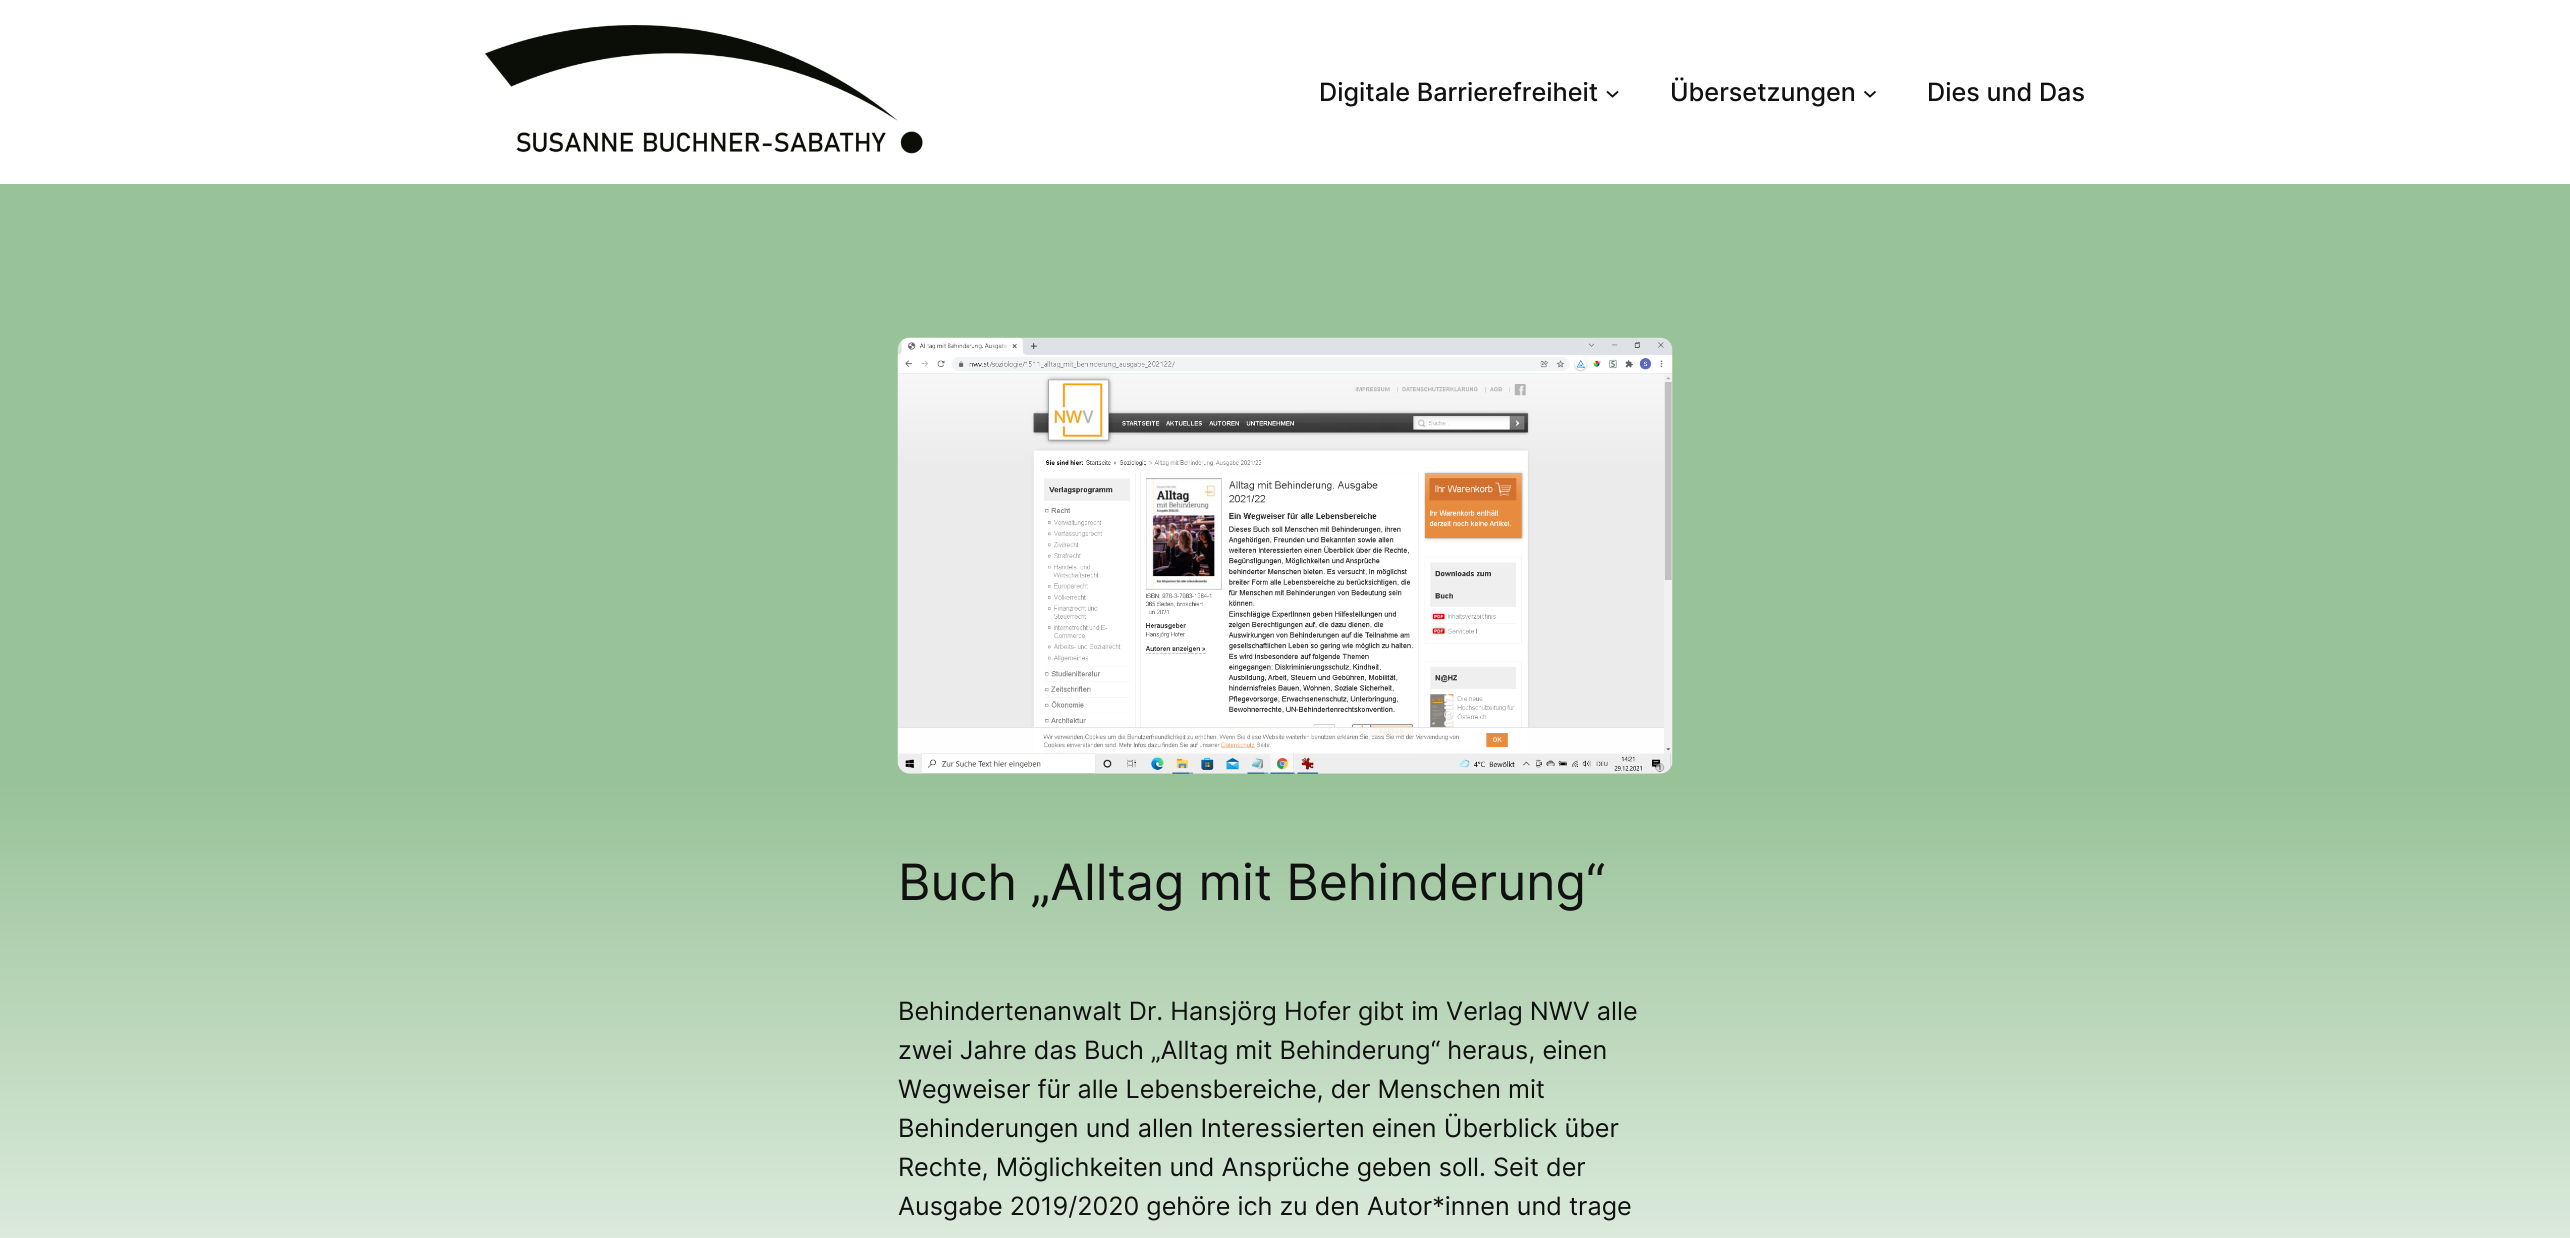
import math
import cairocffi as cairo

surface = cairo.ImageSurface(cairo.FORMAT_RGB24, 2570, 1238)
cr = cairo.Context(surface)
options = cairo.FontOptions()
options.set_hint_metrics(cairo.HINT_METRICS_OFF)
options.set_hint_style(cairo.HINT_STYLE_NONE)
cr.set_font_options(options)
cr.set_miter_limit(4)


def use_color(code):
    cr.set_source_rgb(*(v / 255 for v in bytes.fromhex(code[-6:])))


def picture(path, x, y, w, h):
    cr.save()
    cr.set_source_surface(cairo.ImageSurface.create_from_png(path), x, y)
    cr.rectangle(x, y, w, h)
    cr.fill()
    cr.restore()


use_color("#ffffff")
cr.paint()
gradient = cairo.LinearGradient(1285, 0, 1285, 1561)
gradient.add_color_stop_rgba(0, 0.596, 0.761, 0.596, 1)
gradient.add_color_stop_rgba(0.5, 0.596, 0.761, 0.596, 1)
gradient.add_color_stop_rgba(0.95, 1, 1, 1, 1)
gradient.add_color_stop_rgba(1, 1, 1, 1, 1)
cr.set_source(gradient)
cr.rectangle(0, 184, 2570, 1054)
cr.fill()
picture("img1.png", 485, 25, 438, 129)
cr.select_font_face("Inter Medium")
cr.set_font_size(25.2)
use_color("#111111")
cr.move_to(1319, 101)
cr.show_text("Digitale Barrierefreiheit")
cr.new_path()
cr.move_to(1607, 91.5)
cr.line_to(1612.5, 96.5)
cr.line_to(1618, 91.5)
cr.set_line_width(1.9)
cr.stroke()
cr.move_to(1670, 101)
cr.show_text("Übersetzungen")
cr.new_path()
cr.move_to(1864.5, 91.5)
cr.line_to(1870, 96.5)
cr.line_to(1875.5, 91.5)
cr.stroke()
cr.move_to(1927, 101)
cr.show_text("Dies und Das")
picture("img2.png", 897, 337, 776, 437)
cr.select_font_face("Inter")
cr.set_font_size(50)
cr.move_to(898, 900)
cr.show_text("Buch „Alltag mit Behinderung“")
cr.set_font_size(25.2)
cr.move_to(898, 1020)
cr.show_text("Behindertenanwalt Dr. Hansjörg Hofer gibt im Verlag NWV alle")
cr.move_to(898, 1059)
cr.show_text("zwei Jahre das Buch „Alltag mit Behinderung“ heraus, einen")
cr.move_to(898, 1098)
cr.show_text("Wegweiser für alle Lebensbereiche, der Menschen mit")
cr.move_to(898, 1137)
cr.show_text("Behinderungen und allen Interessierten einen Überblick über")
cr.move_to(898, 1176)
cr.show_text("Rechte, Möglichkeiten und Ansprüche geben soll. Seit der")
cr.move_to(898, 1215)
cr.show_text("Ausgabe 2019/2020 gehöre ich zu den Autor*innen und trage")
surface.write_to_png("result.png")
